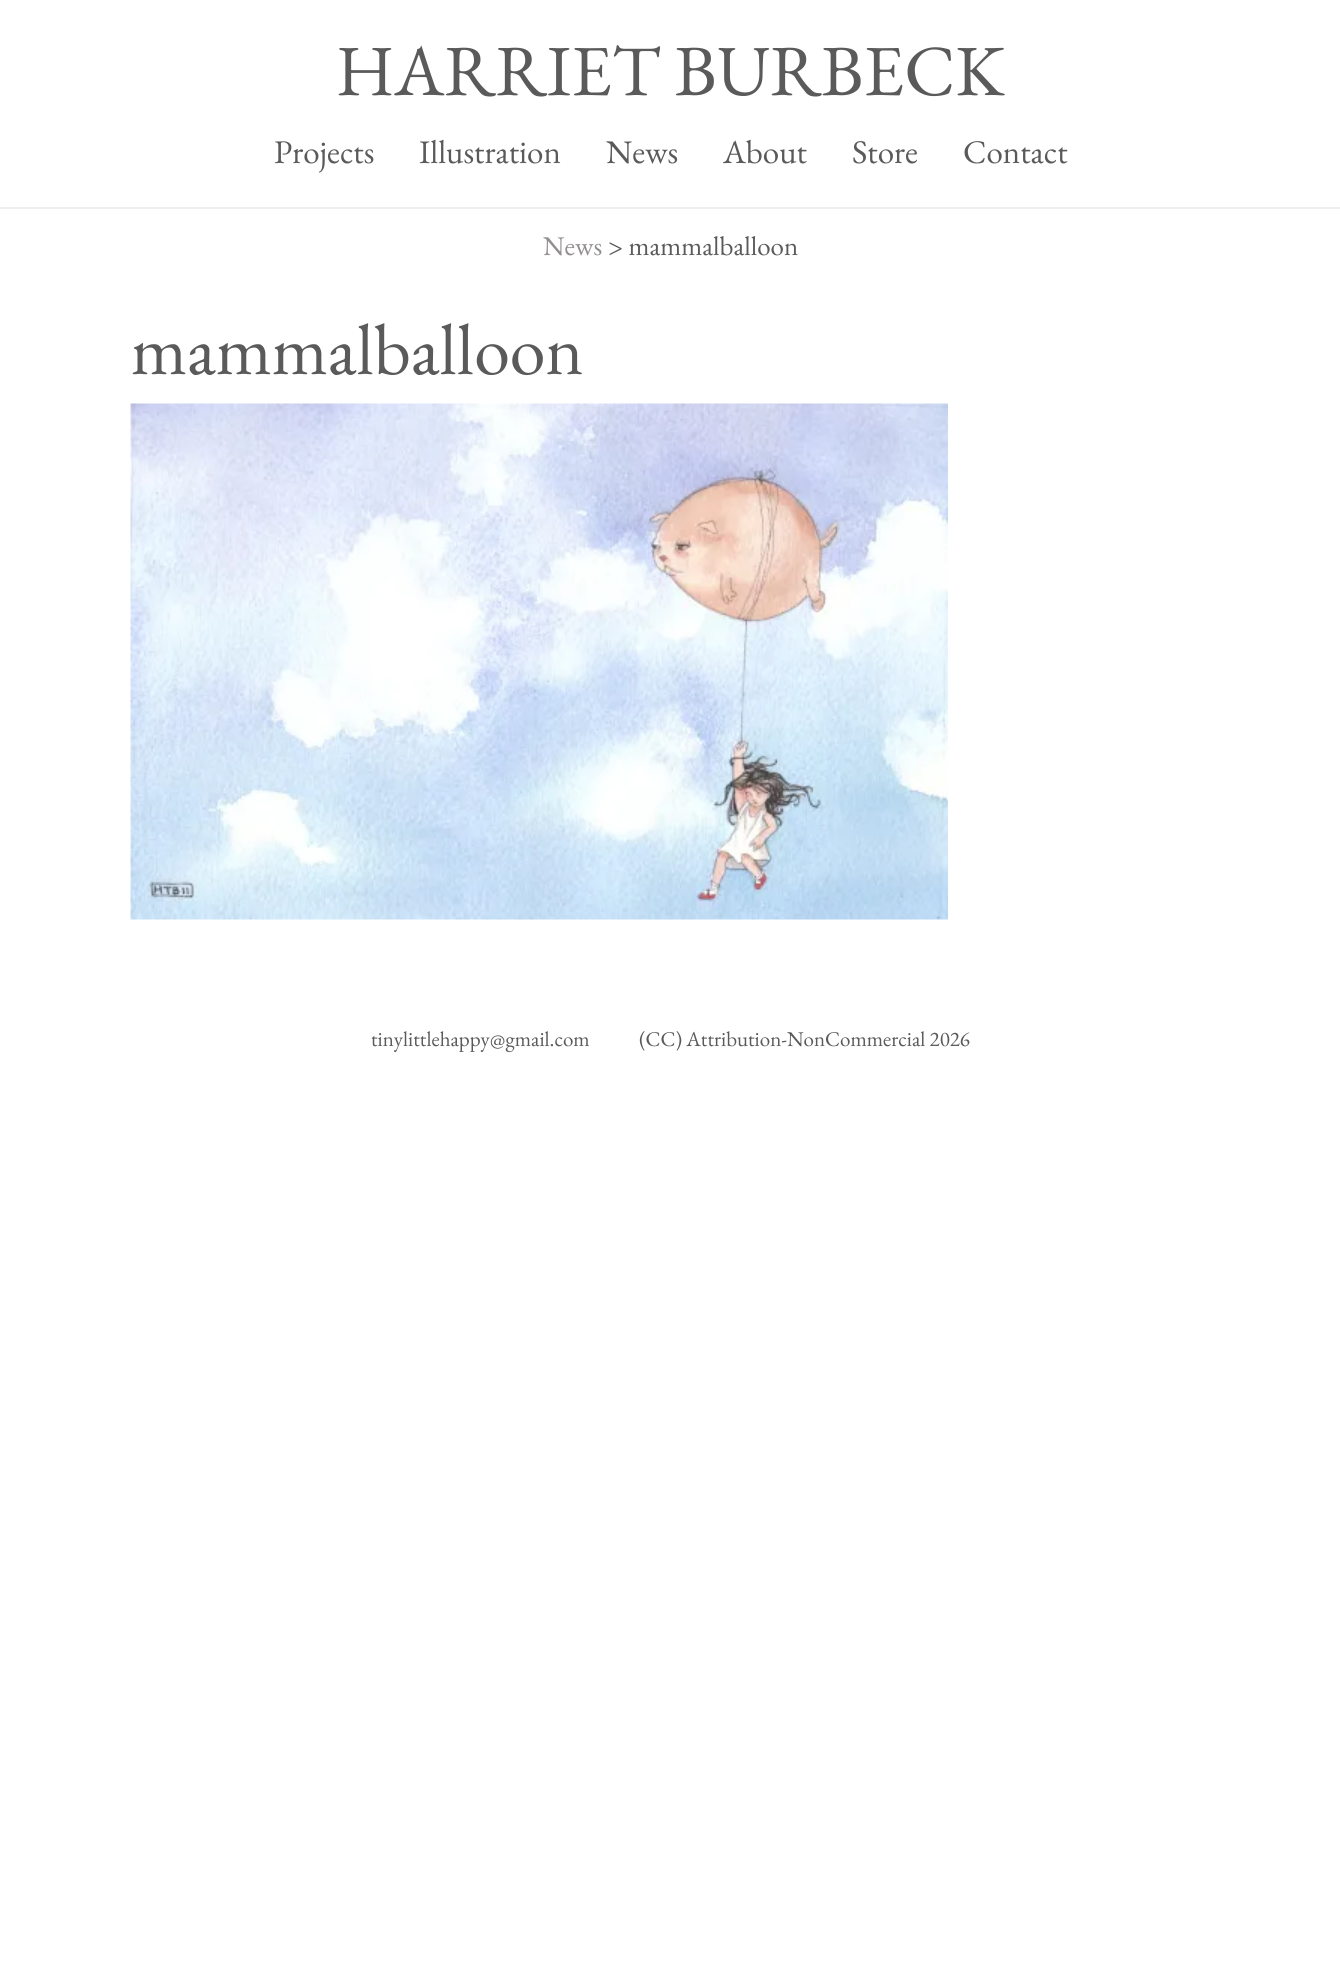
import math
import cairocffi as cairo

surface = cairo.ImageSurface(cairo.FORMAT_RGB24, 1340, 1986)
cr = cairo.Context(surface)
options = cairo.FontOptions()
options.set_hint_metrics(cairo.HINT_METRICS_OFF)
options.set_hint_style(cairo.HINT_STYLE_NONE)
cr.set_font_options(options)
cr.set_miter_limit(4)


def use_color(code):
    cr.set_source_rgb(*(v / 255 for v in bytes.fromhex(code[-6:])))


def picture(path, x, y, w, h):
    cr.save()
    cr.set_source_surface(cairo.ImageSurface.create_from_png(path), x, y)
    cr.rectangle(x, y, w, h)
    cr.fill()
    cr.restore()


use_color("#ffffff")
cr.paint()
cr.select_font_face("EB Garamond")
cr.set_font_size(72)
use_color("#5a5a5a")
cr.move_to(336, 95)
cr.show_text("HARRIET BURBECK")
cr.set_font_size(33)
cr.move_to(274, 163)
cr.show_text("Projects")
cr.move_to(419, 163)
cr.show_text("Illustration")
cr.move_to(606, 163)
cr.show_text("News")
cr.move_to(723, 163)
cr.show_text("About")
cr.move_to(852, 163)
cr.show_text("Store")
cr.move_to(963, 163)
cr.show_text("Contact")
use_color("#eeeeee")
cr.rectangle(0, 207, 1340, 2)
cr.fill()
cr.set_font_size(27)
use_color("#938e91")
cr.move_to(543, 255)
cr.show_text("News")
use_color("#5a5a5a")
cr.move_to(608, 255)
cr.show_text("> mammalballoon")
cr.set_font_size(72)
cr.move_to(131, 374)
cr.show_text("mammalballoon")
picture("img1.png", 130, 403, 818, 517)
cr.set_font_size(21)
cr.move_to(371, 1046)
cr.show_text("tinylittlehappy@gmail.com")
cr.move_to(639, 1046)
cr.show_text("(CC) Attribution-NonCommercial 2026")
surface.write_to_png("result.png")
